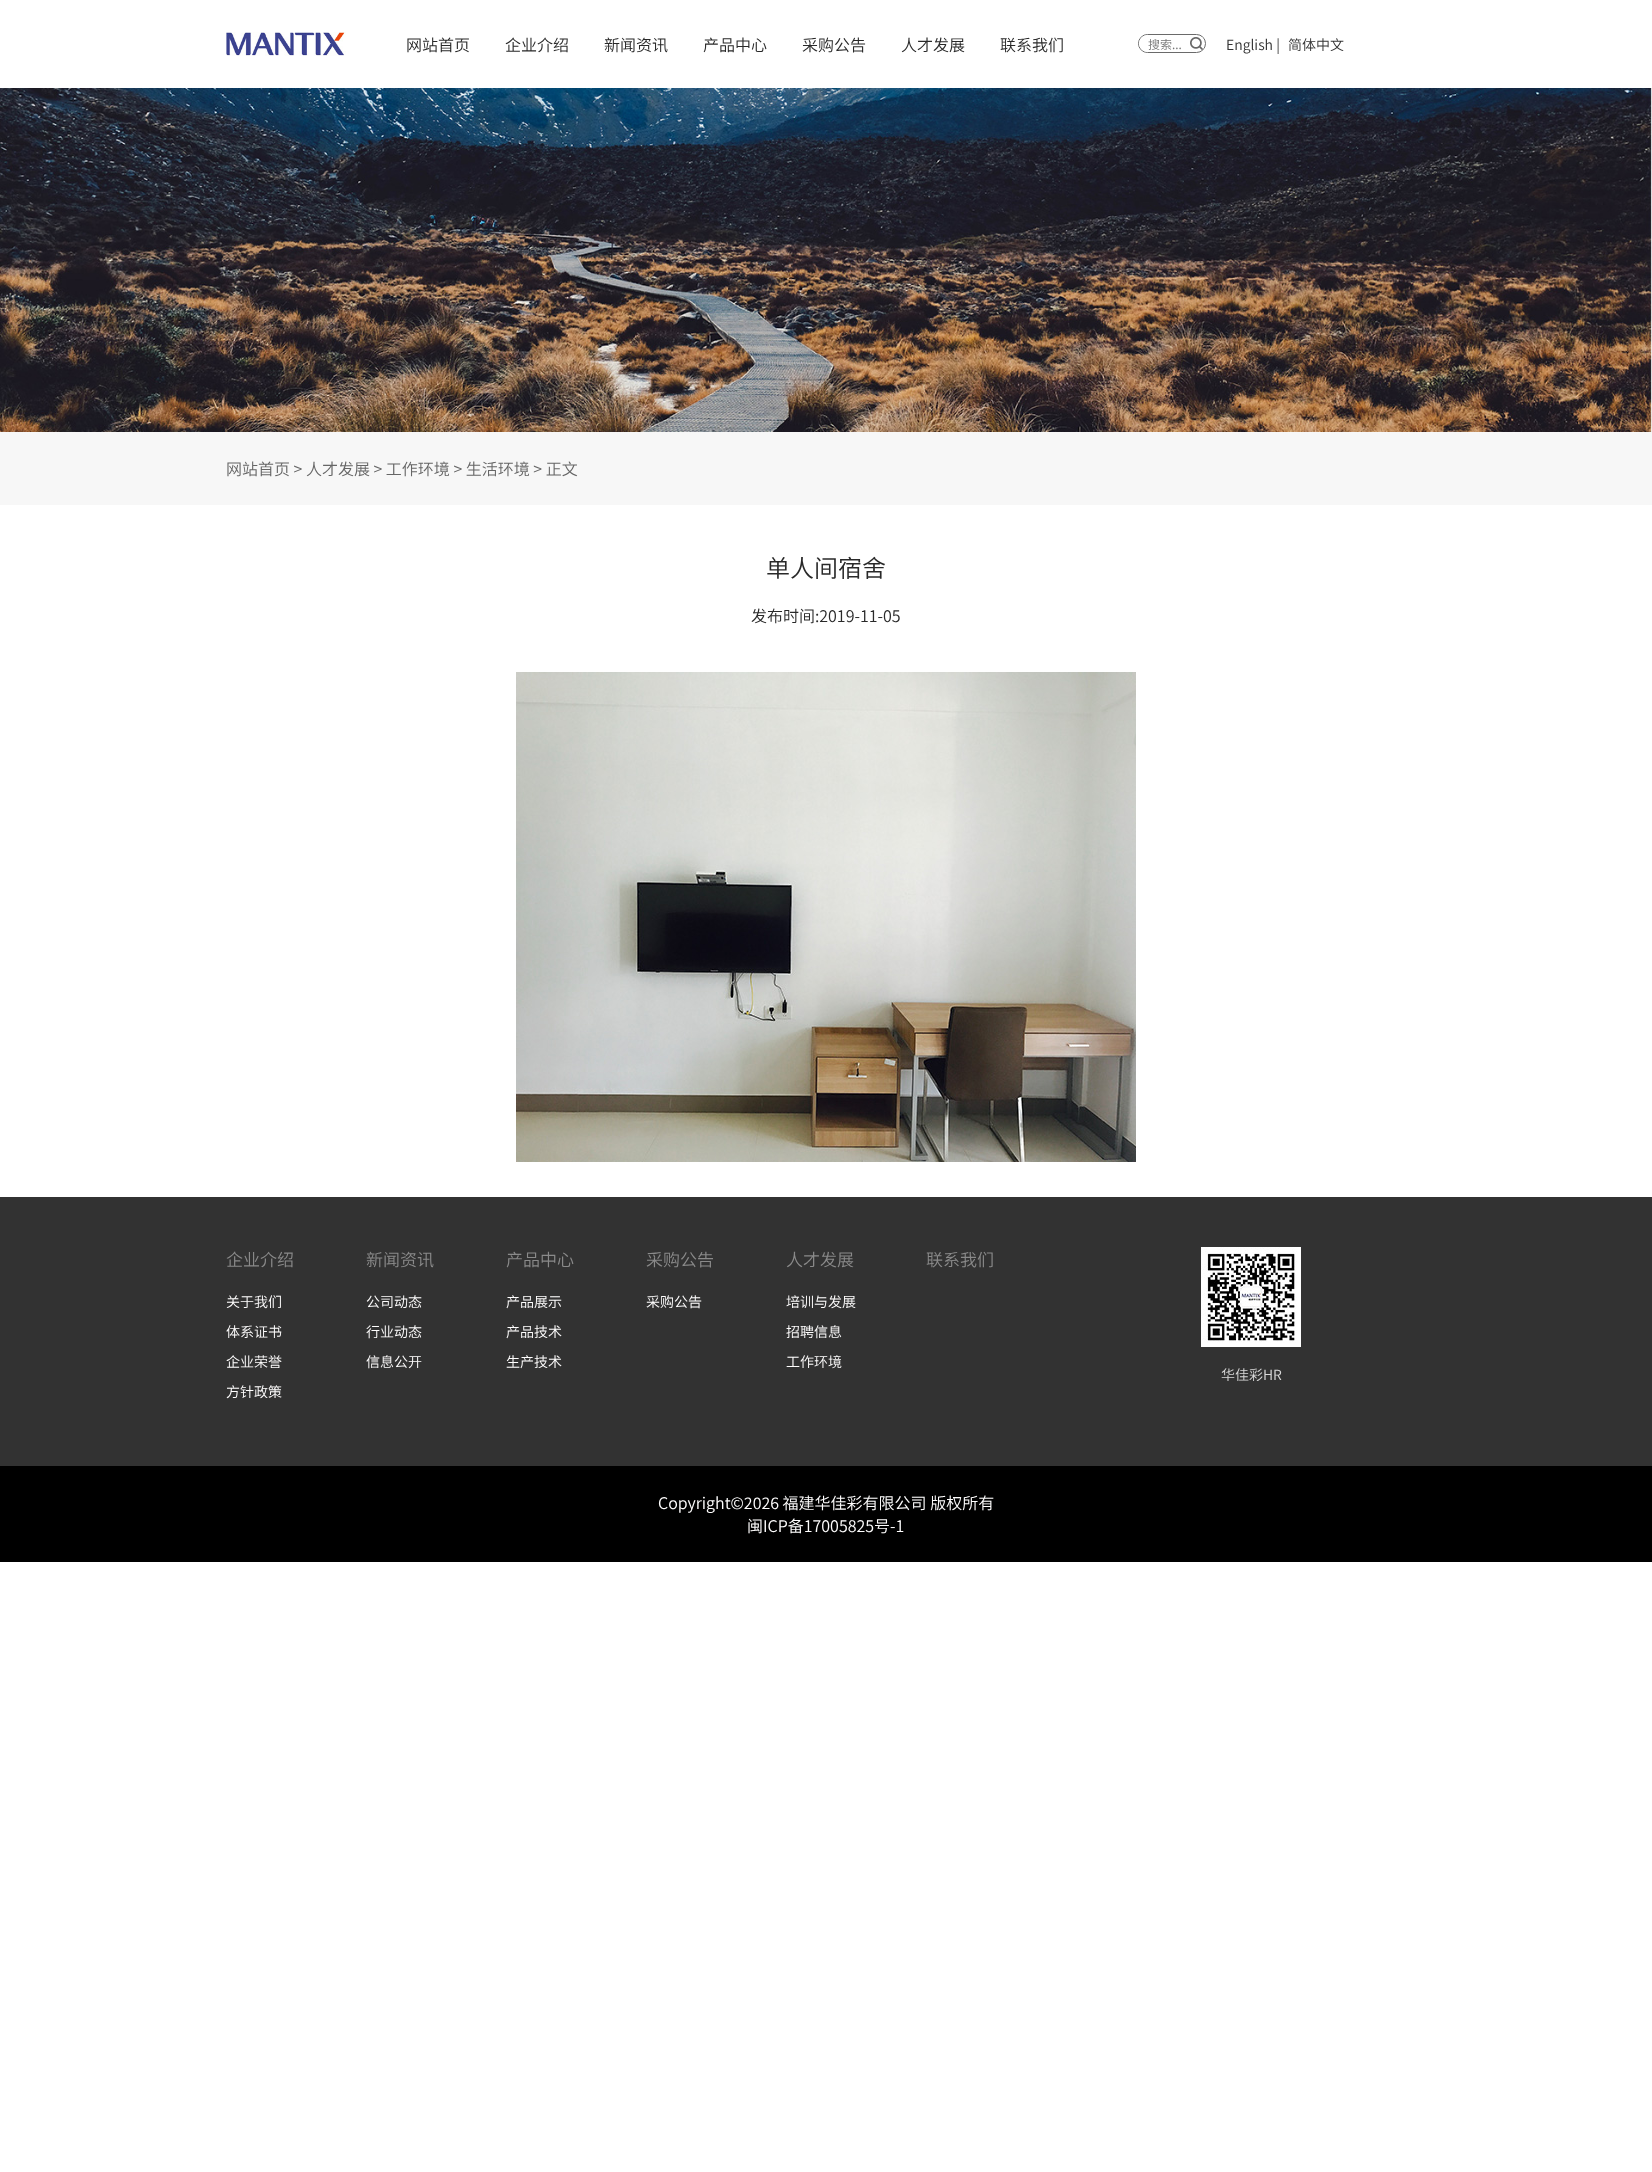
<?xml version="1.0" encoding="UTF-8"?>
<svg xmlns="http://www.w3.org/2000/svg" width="1652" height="2172">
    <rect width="100%" height="100%" fill="#FFFFFF"/>
    <image x="226" y="32" width="120" height="24" href="img_01.png"/>
    <text x="406" y="51" font-family="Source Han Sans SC" font-size="16" font-weight="300" fill="#292929">网站首页</text>
    <text x="505" y="51" font-family="Source Han Sans SC" font-size="16" font-weight="300" fill="#292929">企业介绍</text>
    <text x="604" y="51" font-family="Source Han Sans SC" font-size="16" font-weight="300" fill="#292929">新闻资讯</text>
    <text x="703" y="51" font-family="Source Han Sans SC" font-size="16" font-weight="300" fill="#292929">产品中心</text>
    <text x="802" y="51" font-family="Source Han Sans SC" font-size="16" font-weight="300" fill="#292929">采购公告</text>
    <text x="901" y="51" font-family="Source Han Sans SC" font-size="16" font-weight="300" fill="#292929">人才发展</text>
    <text x="1000" y="51" font-family="Source Han Sans SC" font-size="16" font-weight="300" fill="#292929">联系我们</text>
    <rect x="1138.5" y="34.5" width="67" height="18" rx="9" fill="none" stroke="#6A6A6A"/>
    <path d="M 1147.5 35 H 1190 V 52 H 1147.5 C 1143 52 1139 48 1139 43.5 C 1139 39 1143 35 1147.5 35 Z" fill="#FFFFFF"/>
    <text x="1148" y="49" font-family="Source Han Sans SC" font-size="12" font-weight="300" fill="#757575">搜索...</text>
    <image x="1190" y="37" width="14" height="14" href="img_02.png"/>
    <text x="1226" y="50" font-family="Source Han Sans SC" font-size="14" font-weight="300" fill="#333333">English |</text>
    <text x="1288" y="50" font-family="Source Han Sans SC" font-size="14" font-weight="300" fill="#333333">简体中文</text>
    <image x="0" y="88" width="1652" height="344" href="img_03.png"/>
    <rect x="0" y="432" width="1652" height="73" fill="#F7F7F7"/>
    <text x="226" y="475" font-family="Source Han Sans SC" font-size="16" font-weight="300" fill="#666666">网站首页 &gt; 人才发展 &gt; 工作环境 &gt; 生活环境 &gt; 正文</text>
    <text x="766" y="577" font-family="Source Han Sans SC" font-size="24" font-weight="300" fill="#292929">单人间宿舍</text>
    <text x="751" y="622" font-family="Source Han Sans SC" font-size="16" font-weight="300" fill="#292929">发布时间:2019-11-05</text>
    <image x="516" y="672" width="620" height="490" href="img_04.png"/>
    <rect x="0" y="1197" width="1652" height="269" fill="#323232"/>
    <text x="226" y="1266" font-family="Source Han Sans SC" font-size="17" font-weight="300" fill="#8A8A8A">企业介绍</text>
    <text x="226" y="1307" font-family="Source Han Sans SC" font-size="14" font-weight="300" fill="#FFFEFE">关于我们</text>
    <text x="226" y="1337" font-family="Source Han Sans SC" font-size="14" font-weight="300" fill="#FFFEFE">体系证书</text>
    <text x="226" y="1367" font-family="Source Han Sans SC" font-size="14" font-weight="300" fill="#FFFEFE">企业荣誉</text>
    <text x="226" y="1397" font-family="Source Han Sans SC" font-size="14" font-weight="300" fill="#FFFEFE">方针政策</text>
    <text x="366" y="1266" font-family="Source Han Sans SC" font-size="17" font-weight="300" fill="#8A8A8A">新闻资讯</text>
    <text x="366" y="1307" font-family="Source Han Sans SC" font-size="14" font-weight="300" fill="#FFFEFE">公司动态</text>
    <text x="366" y="1337" font-family="Source Han Sans SC" font-size="14" font-weight="300" fill="#FFFEFE">行业动态</text>
    <text x="366" y="1367" font-family="Source Han Sans SC" font-size="14" font-weight="300" fill="#FFFEFE">信息公开</text>
    <text x="506" y="1266" font-family="Source Han Sans SC" font-size="17" font-weight="300" fill="#8A8A8A">产品中心</text>
    <text x="506" y="1307" font-family="Source Han Sans SC" font-size="14" font-weight="300" fill="#FFFEFE">产品展示</text>
    <text x="506" y="1337" font-family="Source Han Sans SC" font-size="14" font-weight="300" fill="#FFFEFE">产品技术</text>
    <text x="506" y="1367" font-family="Source Han Sans SC" font-size="14" font-weight="300" fill="#FFFEFE">生产技术</text>
    <text x="646" y="1266" font-family="Source Han Sans SC" font-size="17" font-weight="300" fill="#8A8A8A">采购公告</text>
    <text x="646" y="1307" font-family="Source Han Sans SC" font-size="14" font-weight="300" fill="#FFFEFE">采购公告</text>
    <text x="786" y="1266" font-family="Source Han Sans SC" font-size="17" font-weight="300" fill="#8A8A8A">人才发展</text>
    <text x="786" y="1307" font-family="Source Han Sans SC" font-size="14" font-weight="300" fill="#FFFEFE">培训与发展</text>
    <text x="786" y="1337" font-family="Source Han Sans SC" font-size="14" font-weight="300" fill="#FFFEFE">招聘信息</text>
    <text x="786" y="1367" font-family="Source Han Sans SC" font-size="14" font-weight="300" fill="#FFFEFE">工作环境</text>
    <text x="926" y="1266" font-family="Source Han Sans SC" font-size="17" font-weight="300" fill="#8A8A8A">联系我们</text>
    <image x="1201" y="1247" width="100" height="100" href="img_05.png"/>
    <text x="1221" y="1380" font-family="Source Han Sans SC" font-size="14" font-weight="300" fill="#D9D9D9">华佳彩HR</text>
    <rect x="0" y="1466" width="1652" height="96" fill="#000000"/>
    <text x="658" y="1509" font-family="Source Han Sans SC" font-size="16" font-weight="300" fill="#FFFEFE">Copyright©2026 福建华佳彩有限公司 版权所有</text>
    <text x="747" y="1532" font-family="Source Han Sans SC" font-size="16" font-weight="300" fill="#FFFEFE">闽ICP备17005825号-1</text>
</svg>
